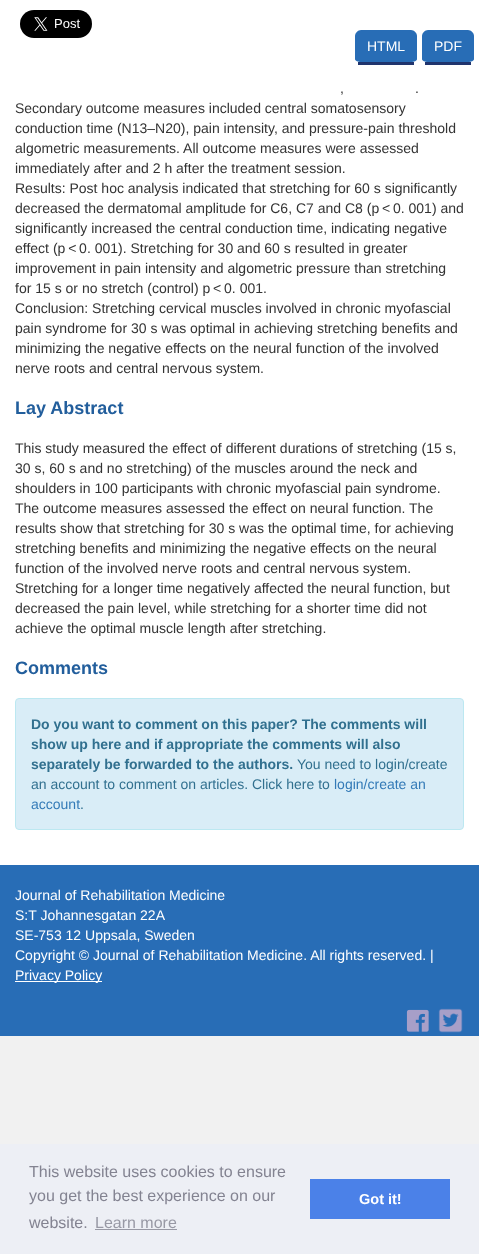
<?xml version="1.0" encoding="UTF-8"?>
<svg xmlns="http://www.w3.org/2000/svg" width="479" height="1254">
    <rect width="100%" height="100%" fill="#F1F1F1"/>
    <rect x="0" y="0" width="479" height="865" fill="#FFFFFF"/>
    <image x="20" y="10" width="72" height="28" href="img_01.png"/>
    <path d="M 361 30 H 411 C 414 30 417 33 417 36 V 59 C 417 61 414 62 411 62 H 361 C 358 62 355 61 355 59 V 36 C 355 33 358 30 361 30 Z" fill="#286DB6"/>
    <rect x="358" y="62" width="56" height="3" fill="#20346D"/>
    <text x="367" y="51" font-family="Liberation Sans" font-size="14" fill="#FFFFFF">HTML</text>
    <path d="M 428 30 H 468 C 471 30 474 33 474 36 V 59 C 474 61 471 62 468 62 H 428 C 425 62 422 61 422 59 V 36 C 422 33 425 30 428 30 Z" fill="#286DB6"/>
    <rect x="425" y="62" width="46" height="3" fill="#20346D"/>
    <text x="434" y="51" font-family="Liberation Sans" font-size="14" fill="#FFFFFF">PDF</text>
    <text x="340" y="93" font-family="Liberation Sans" font-size="14" fill="#333333">,</text>
    <text x="415" y="93" font-family="Liberation Sans" font-size="14" fill="#333333">.</text>
    <text font-family="Liberation Sans" font-size="14" fill="#333333">
        <tspan x="15" y="113">Secondary outcome measures included central somatosensory</tspan>
        <tspan x="15" y="133">conduction time (N13–N20), pain intensity, and pressure-pain threshold</tspan>
        <tspan x="15" y="153">algometric measurements. All outcome measures were assessed</tspan>
        <tspan x="15" y="173">immediately after and 2 h after the treatment session.</tspan>
        <tspan x="15" y="193">Results: Post hoc analysis indicated that stretching for 60 s significantly</tspan>
        <tspan x="15" y="213">decreased the dermatomal amplitude for C6, C7 and C8 (p &lt; 0. 001) and</tspan>
        <tspan x="15" y="233">significantly increased the central conduction time, indicating negative</tspan>
        <tspan x="15" y="253">effect (p &lt; 0. 001). Stretching for 30 and 60 s resulted in greater</tspan>
        <tspan x="15" y="273">improvement in pain intensity and algometric pressure than stretching</tspan>
        <tspan x="15" y="293">for 15 s or no stretch (control) p &lt; 0. 001.</tspan>
        <tspan x="15" y="313">Conclusion: Stretching cervical muscles involved in chronic myofascial</tspan>
        <tspan x="15" y="333">pain syndrome for 30 s was optimal in achieving stretching benefits and</tspan>
        <tspan x="15" y="353">minimizing the negative effects on the neural function of the involved</tspan>
        <tspan x="15" y="373">nerve roots and central nervous system.</tspan>
    </text>
    <text x="15" y="414" font-family="Liberation Sans" font-size="18" font-weight="700" fill="#225E9C">Lay Abstract</text>
    <text font-family="Liberation Sans" font-size="14" fill="#333333">
        <tspan x="15" y="453">This study measured the effect of different durations of stretching (15 s,</tspan>
        <tspan x="15" y="473">30 s, 60 s and no stretching) of the muscles around the neck and</tspan>
        <tspan x="15" y="493">shoulders in 100 participants with chronic myofascial pain syndrome.</tspan>
        <tspan x="15" y="513">The outcome measures assessed the effect on neural function. The</tspan>
        <tspan x="15" y="533">results show that stretching for 30 s was the optimal time, for achieving</tspan>
        <tspan x="15" y="553">stretching benefits and minimizing the negative effects on the neural</tspan>
        <tspan x="15" y="573">function of the involved nerve roots and central nervous system.</tspan>
        <tspan x="15" y="593">Stretching for a longer time negatively affected the neural function, but</tspan>
        <tspan x="15" y="613">decreased the pain level, while stretching for a shorter time did not</tspan>
        <tspan x="15" y="633">achieve the optimal muscle length after stretching.</tspan>
    </text>
    <text x="15" y="674" font-family="Liberation Sans" font-size="18" font-weight="700" fill="#225E9C">Comments</text>
    <rect x="15.5" y="698.5" width="448" height="131" rx="3.5" fill="#D9EDF7" stroke="#BCE8F1"/>
    <text font-family="Liberation Sans" font-size="14" font-weight="700" fill="#31708F">
        <tspan x="31" y="729">Do you want to comment on this paper? The comments will</tspan>
        <tspan x="31" y="749">show up here and if appropriate the comments will also</tspan>
        <tspan x="31" y="769">separately be forwarded to the authors.</tspan>
    </text>
    <text x="297" y="769" font-family="Liberation Sans" font-size="14" fill="#31708F">You need to login/create</text>
    <text x="31" y="789" font-family="Liberation Sans" font-size="14" fill="#31708F">an account to comment on articles. Click here to</text>
    <text x="334" y="789" font-family="Liberation Sans" font-size="14" fill="#337AB7">login/create an</text>
    <text x="31" y="809" font-family="Liberation Sans" font-size="14" fill="#337AB7">account</text>
    <text x="80" y="809" font-family="Liberation Sans" font-size="14" fill="#31708F">.</text>
    <rect x="0" y="865" width="479" height="171" fill="#286DB6"/>
    <text font-family="Liberation Sans" font-size="14" fill="#FFFFFF">
        <tspan x="15" y="900">Journal of Rehabilitation Medicine</tspan>
        <tspan x="15" y="920">S:T Johannesgatan 22A</tspan>
        <tspan x="15" y="940">SE-753 12 Uppsala, Sweden</tspan>
        <tspan x="15" y="960">Copyright © Journal of Rehabilitation Medicine. All rights reserved. |</tspan>
    </text>
    <rect x="15" y="981" width="87" height="1" fill="#FFFFFF"/>
    <text x="15" y="980" font-family="Liberation Sans" font-size="14" fill="#FFFFFF">Privacy Policy</text>
    <image x="406" y="1009" width="23" height="23" href="img_02.png"/>
    <image x="438" y="1008" width="25" height="25" href="img_03.png"/>
    <rect x="0" y="1144" width="479" height="110" fill="#EDEFF5"/>
    <text font-family="Liberation Sans" font-size="16" fill="#838391">
        <tspan x="29" y="1177">This website uses cookies to ensure</tspan>
        <tspan x="29" y="1201">you get the best experience on our</tspan>
        <tspan x="29" y="1228">website.</tspan>
    </text>
    <text x="95" y="1228" font-family="Liberation Sans" font-size="16" fill="#9899A5">Learn more</text>
    <rect x="95" y="1229" width="82" height="1" fill="#9899A5"/>
    <rect x="310" y="1179" width="140" height="40" fill="#4B81E8"/>
    <text x="359" y="1204" font-family="Liberation Sans" font-size="14.5" font-weight="700" fill="#FFFFFF">Got it!</text>
</svg>
